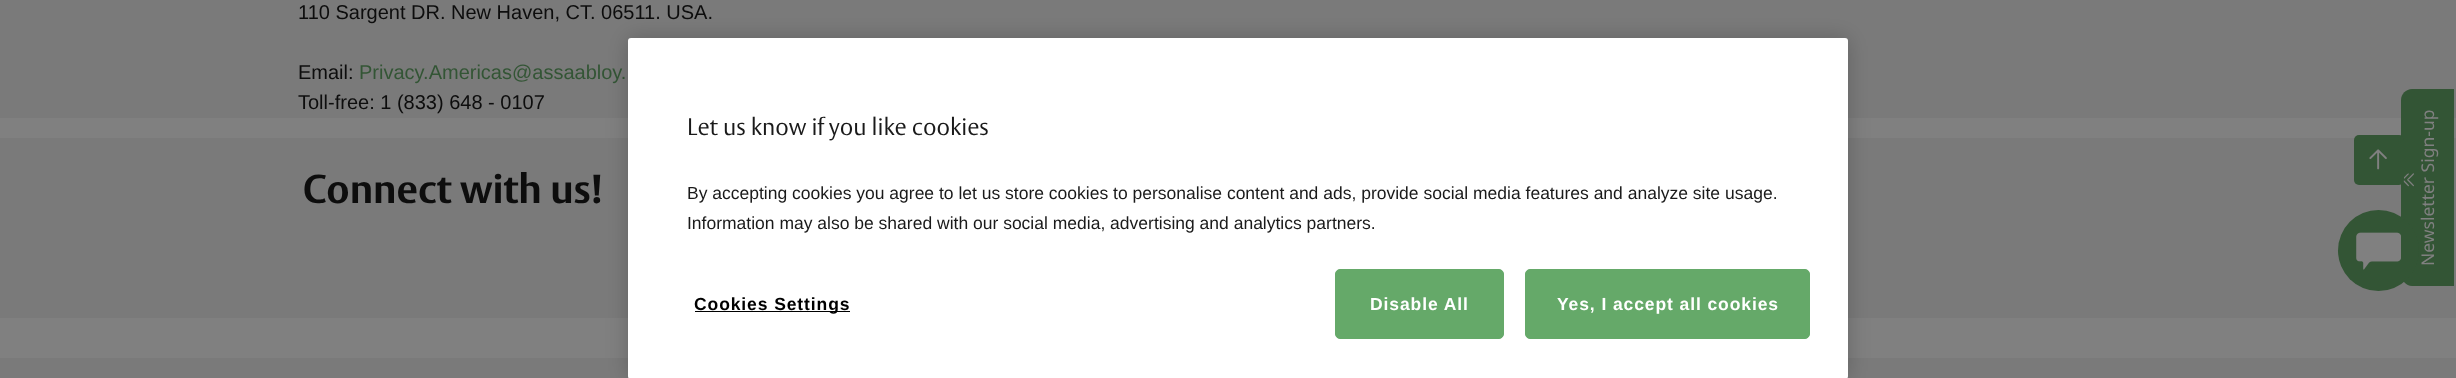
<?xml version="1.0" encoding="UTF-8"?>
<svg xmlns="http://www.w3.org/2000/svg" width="2456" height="378">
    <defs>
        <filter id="blur1" x="-50%" y="-200%" width="200%" height="500%"><feGaussianBlur stdDeviation="11"/></filter>
    </defs>
    <rect width="100%" height="100%" fill="#808080"/>
    <rect x="0" y="0" width="2456" height="118" fill="#7A7A7A"/>
    <text x="298" y="19" font-family="Liberation Sans" font-size="20" fill="#0D0D0D">110 Sargent DR. New Haven, CT. 06511. USA.</text>
    <text x="298" y="79" font-family="Liberation Sans" font-size="20" fill="#0D0D0D">Email:</text>
    <text x="359" y="79" font-family="Liberation Sans" font-size="20" fill="#335535">Privacy.Americas@assaabloy.</text>
    <text x="298" y="109" font-family="Liberation Sans" font-size="20" fill="#0D0D0D">Toll-free: 1 (833) 648 - 0107</text>
    <rect x="0" y="138" width="2456" height="180" fill="#7A7A7A"/>
    <text x="303" y="203" font-family="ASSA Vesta" font-size="40" font-weight="700" fill="#0D0D0D">Connect with us!</text>
    <path d="M 2401 274 V 100 C 2401 94 2406 89 2412 89 H 2454 V 286 H 2412 C 2406 286 2401 280 2401 274 Z" fill="#335535"/>
    <path d="M 2408 186 L 2402 180 L 2403 179.5 C 2404 180 2409 185 2409 185.5 C 2409 186 2408 186.5 2408 186 Z" fill="#808080"/>
    <path d="M 2402 179.5 C 2403 178.5 2407.5 173 2408.5 173.5 C 2409 173.5 2409 174 2408.5 174.5 L 2403 180 Z" fill="#808080"/>
    <rect x="2354" y="135" width="50" height="50" rx="5" fill="#335535"/>
    <image x="2369" y="149" width="18" height="21" href="img_01.png"/>
    <path d="M 2413 186 L 2407 180 L 2408 179.5 C 2409 180 2414 185 2414 185.5 C 2414 186 2413 186.5 2413 186 Z" fill="#808080"/>
    <path d="M 2407 179.5 L 2413 173.5 C 2413 173 2414 173.5 2414 174 C 2414 174.5 2409 179.5 2408 180 Z" fill="#808080"/>
    <text x="2434" y="266" transform="rotate(-90 2434 266)" font-family="Noto Sans" font-size="17.5" fill="#808080">Newsletter Sign-up</text>
    <rect x="0" y="358" width="2456" height="20" fill="#7A7A7A"/>
    <rect x="628" y="38" width="1220" height="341" rx="3" fill="#000000" fill-opacity="0.2" filter="url(#blur1)"/>
    <rect x="628" y="38" width="1220" height="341" rx="3" fill="#FFFFFF"/>
    <text x="687" y="135" font-family="ASSA Vesta" font-size="23.75" font-weight="300" fill="#1A1A1A">Let us know if you like cookies</text>
    <text font-family="Liberation Sans" font-size="17.5" fill="#1A1A1A">
        <tspan x="687" y="199">By accepting cookies you agree to let us store cookies to personalise content and ads, provide social media features and analyze site usage.</tspan>
        <tspan x="687" y="229">Information may also be shared with our social media, advertising and analytics partners.</tspan>
    </text>
    <rect x="695" y="311" width="155" height="1" fill="#000000"/>
    <text x="694" y="310" font-family="Liberation Sans" font-size="17.5" font-weight="700" letter-spacing="0.9" fill="#000000">Cookies Settings</text>
    <rect x="1335.5" y="269.5" width="168" height="69" rx="4.5" fill="#65A969" stroke="#65A969"/>
    <text x="1370" y="310" font-family="Liberation Sans" font-size="17.5" font-weight="700" letter-spacing="0.9" fill="#FFFFFF">Disable All</text>
    <rect x="1525.5" y="269.5" width="284" height="69" rx="4.5" fill="#65A969" stroke="#65A969"/>
    <text x="1557" y="310" font-family="Liberation Sans" font-size="17.5" font-weight="700" letter-spacing="0.9" fill="#FFFFFF">Yes, I accept all cookies</text>
    <circle cx="2378.5" cy="250.5" r="40.5" fill="#335535"/>
    <image x="2356" y="232" width="45" height="38" href="img_02.png"/>
</svg>
